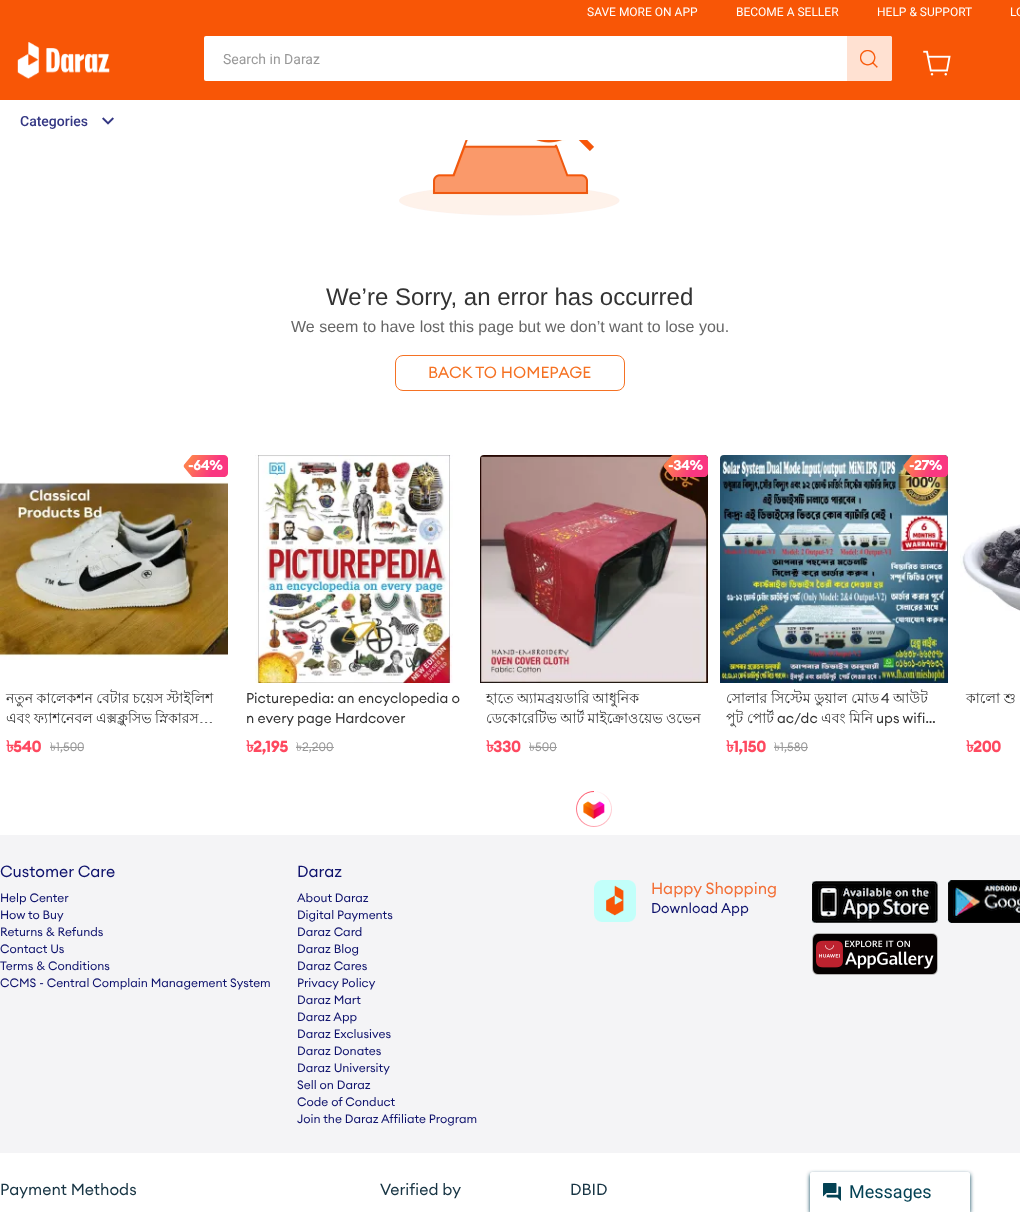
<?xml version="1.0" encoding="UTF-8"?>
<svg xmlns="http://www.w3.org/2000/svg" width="1020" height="1212">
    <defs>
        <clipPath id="clip1"><rect x="246" y="735" width="42" height="24"/></clipPath>
        <clipPath id="clip2"><rect x="726" y="689" width="216" height="40"/></clipPath>
        <clipPath id="clip3"><rect x="966" y="735" width="35" height="24"/></clipPath>
        <filter id="blur1" x="-50%" y="-200%" width="200%" height="500%"><feGaussianBlur stdDeviation="2"/></filter>
    </defs>
    <rect width="100%" height="100%" fill="#FFFFFF"/>
    <rect x="0" y="0" width="1020" height="100" fill="#F85606"/>
    <text x="587" y="16" font-family="Roboto" font-size="12" fill="#FFFFFF">SAVE MORE ON APP</text>
    <text x="736" y="16" font-family="Roboto" font-size="12" fill="#FFFFFF">BECOME A SELLER</text>
    <text x="877" y="16" font-family="Roboto" font-size="12" fill="#FFFFFF">HELP &amp; SUPPORT</text>
    <text x="1010" y="16" font-family="Roboto" font-size="12" fill="#FFFFFF">LO</text>
    <image x="17" y="42" width="93" height="37" href="img_01.png"/>
    <rect x="204" y="36" width="688" height="45" rx="2" fill="#FFFFFF"/>
    <text x="223" y="64" font-family="Roboto" font-size="14" fill="#999999">Search in Daraz</text>
    <path d="M 847 36 H 890 C 891 36 892 37 892 38 V 79 C 892 80 891 81 890 81 H 847 Z" fill="#FFE1D2"/>
    <image x="860" y="50" width="18" height="18" href="img_02.png"/>
    <image x="923" y="50" width="28" height="26" href="img_03.png"/>
    <text x="20" y="126" font-family="Roboto" font-size="14" font-weight="500" fill="#333683">Categories</text>
    <image x="102" y="117" width="12" height="8" href="img_04.png"/>
    <image x="399" y="140" width="221" height="76" href="img_05.png"/>
    <text x="326" y="305" font-family="Liberation Sans" font-size="24" fill="#333333">We’re Sorry, an error has occurred</text>
    <text x="291" y="332" font-family="Liberation Sans" font-size="16" fill="#666666">We seem to have lost this page but we don’t want to lose you.</text>
    <rect x="395.5" y="355.5" width="229" height="35" rx="7.5" fill="none" stroke="#F57224"/>
    <text x="428" y="378" font-family="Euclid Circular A" font-size="16" fill="#F57224">BACK TO HOMEPAGE</text>
    <image x="183" y="455" width="45" height="22" href="img_06.png"/>
    <text x="188" y="470" font-family="Euclid Circular A" font-size="14" font-weight="700" letter-spacing="-0.5" fill="#FFFFFF">-64%</text>
    <image x="0" y="482" width="228" height="178" href="img_07.png"/>
    <text font-family="Lohit Bengali" font-size="14" fill="#333333">
        <tspan x="6" y="703" word-spacing="-0.5">নতুন কালেকশন বেটার চয়েস স্টাইলিশ</tspan>
        <tspan x="6" y="723" word-spacing="-0.5">এবং ফ্যাশনেবল এক্সক্লুসিভ স্নিকারস…</tspan>
    </text>
    <text x="6" y="752" font-family="Lohit Bengali" font-size="16" font-weight="700" letter-spacing="-0.5" fill="#FE4960">৳</text>
    <text x="13" y="752" font-family="Euclid Circular A" font-size="16" font-weight="700" letter-spacing="-0.5" fill="#FE4960">540</text>
    <text x="50" y="751" font-family="Lohit Bengali" font-size="12" fill="#999999">৳</text>
    <rect x="50" y="747" width="6" height="1" fill="#999999"/>
    <text x="56" y="751" font-family="Euclid Circular A" font-size="12" fill="#999999">1,500</text>
    <rect x="56" y="747" width="28" height="1" fill="#999999"/>
    <image x="255" y="455" width="198" height="228" href="img_08.png"/>
    <text font-family="Euclid Circular A" font-size="14" fill="#333333">
        <tspan x="246" y="703">Picturepedia: an encyclopedia o</tspan>
        <tspan x="246" y="723">n every page Hardcover</tspan>
    </text>
    <text x="246" y="752" font-family="Lohit Bengali" font-size="16" font-weight="700" letter-spacing="-0.5" fill="#FE4960">৳</text>
    <g clip-path="url(#clip1)">
        <text x="253" y="752" font-family="Euclid Circular A" font-size="16" font-weight="700" letter-spacing="-0.5" fill="#FE4960">2,195</text>
    </g>
    <text x="296" y="751" font-family="Lohit Bengali" font-size="12" fill="#999999">৳</text>
    <rect x="296" y="747" width="6" height="1" fill="#999999"/>
    <text x="302" y="751" font-family="Euclid Circular A" font-size="12" fill="#999999">2,200</text>
    <rect x="302" y="747" width="32" height="1" fill="#999999"/>
    <image x="480" y="455" width="228" height="228" href="img_09.png"/>
    <image x="663" y="455" width="45" height="22" href="img_10.png"/>
    <text x="668" y="470" font-family="Euclid Circular A" font-size="14" font-weight="700" letter-spacing="-0.5" fill="#FFFFFF">-34%</text>
    <text font-family="Lohit Bengali" font-size="14" fill="#333333">
        <tspan x="486" y="703" word-spacing="-0.5">হাতে অ্যামব্রয়ডারি আধুনিক</tspan>
        <tspan x="486" y="723" word-spacing="-0.5">ডেকোরেটিভ আর্ট মাইক্রোওয়েভ ওভেন</tspan>
    </text>
    <text x="486" y="752" font-family="Lohit Bengali" font-size="16" font-weight="700" letter-spacing="-0.5" fill="#FE4960">৳</text>
    <text x="493" y="752" font-family="Euclid Circular A" font-size="16" font-weight="700" letter-spacing="-0.5" fill="#FE4960">330</text>
    <text x="529" y="751" font-family="Lohit Bengali" font-size="12" fill="#999999">৳</text>
    <rect x="529" y="747" width="6" height="1" fill="#999999"/>
    <text x="535" y="751" font-family="Euclid Circular A" font-size="12" fill="#999999">500</text>
    <rect x="535" y="747" width="22" height="1" fill="#999999"/>
    <image x="720" y="455" width="228" height="228" href="img_11.png"/>
    <image x="903" y="455" width="45" height="22" href="img_12.png"/>
    <text x="909" y="470" font-family="Euclid Circular A" font-size="14" font-weight="700" letter-spacing="-0.5" fill="#FFFFFF">-27%</text>
    <text x="726" y="703" font-family="Lohit Bengali" font-size="14" fill="#333333">সোলার সিস্টেম ডুয়াল মোড</text>
    <text x="881" y="703" font-family="Euclid Circular A" font-size="14" fill="#333333">4</text>
    <text x="893" y="703" font-family="Lohit Bengali" font-size="14" fill="#333333">আউট</text>
    <g clip-path="url(#clip2)">
        <text x="726" y="723" font-family="Lohit Bengali" font-size="14" fill="#333333">পুট</text>
    </g>
    <text x="747" y="723" font-family="Lohit Bengali" font-size="14" fill="#333333">পোর্ট</text>
    <text x="777" y="723" font-family="Euclid Circular A" font-size="14" fill="#333333">ac/dc</text>
    <text x="821" y="723" font-family="Lohit Bengali" font-size="14" fill="#333333">এবং</text>
    <text x="849" y="723" font-family="Lohit Bengali" font-size="14" fill="#333333">মিনি</text>
    <text x="876" y="723" font-family="Euclid Circular A" font-size="14" fill="#333333">ups wifi…</text>
    <text x="726" y="752" font-family="Lohit Bengali" font-size="16" font-weight="700" letter-spacing="-0.5" fill="#FE4960">৳</text>
    <text x="733" y="752" font-family="Euclid Circular A" font-size="16" font-weight="700" letter-spacing="-0.5" fill="#FE4960">1,150</text>
    <text x="774" y="751" font-family="Lohit Bengali" font-size="12" fill="#999999">৳</text>
    <rect x="774" y="747" width="6" height="1" fill="#999999"/>
    <text x="780" y="751" font-family="Euclid Circular A" font-size="12" fill="#999999">1,580</text>
    <rect x="780" y="747" width="28" height="1" fill="#999999"/>
    <image x="960" y="524" width="60" height="87" href="img_13.png"/>
    <text x="966" y="703" font-family="Lohit Bengali" font-size="14" fill="#333333">কালো শু</text>
    <text x="966" y="752" font-family="Lohit Bengali" font-size="16" font-weight="700" letter-spacing="-0.5" fill="#FE4960">৳</text>
    <g clip-path="url(#clip3)">
        <text x="973" y="752" font-family="Euclid Circular A" font-size="16" font-weight="700" letter-spacing="-0.5" fill="#FE4960">200</text>
    </g>
    <image x="576" y="791" width="36" height="36" href="img_14.png"/>
    <circle cx="594" cy="809" r="17" fill="#FFFFFF"/>
    <image x="583" y="801" width="22" height="18" href="img_15.png"/>
    <rect x="0" y="835" width="1020" height="318" fill="#F4F4F6"/>
    <text x="0" y="877" font-family="Euclid Circular A" font-size="16" fill="#0F136D">Customer Care</text>
    <text font-family="Euclid Circular A" font-size="12" fill="#0F136D">
        <tspan x="0" y="902">Help Center</tspan>
        <tspan x="0" y="919">How to Buy</tspan>
        <tspan x="0" y="936">Returns &amp; Refunds</tspan>
        <tspan x="0" y="953">Contact Us</tspan>
        <tspan x="0" y="970">Terms &amp; Conditions</tspan>
        <tspan x="0" y="987">CCMS - Central Complain Management System</tspan>
    </text>
    <text x="297" y="877" font-family="Euclid Circular A" font-size="16" fill="#0F136D">Daraz</text>
    <text font-family="Euclid Circular A" font-size="12" fill="#0F136D">
        <tspan x="297" y="902">About Daraz</tspan>
        <tspan x="297" y="919">Digital Payments</tspan>
        <tspan x="297" y="936">Daraz Card</tspan>
        <tspan x="297" y="953">Daraz Blog</tspan>
        <tspan x="297" y="970">Daraz Cares</tspan>
        <tspan x="297" y="987">Privacy Policy</tspan>
        <tspan x="297" y="1004">Daraz Mart</tspan>
        <tspan x="297" y="1021">Daraz App</tspan>
        <tspan x="297" y="1038">Daraz Exclusives</tspan>
        <tspan x="297" y="1055">Daraz Donates</tspan>
        <tspan x="297" y="1072">Daraz University</tspan>
        <tspan x="297" y="1089">Sell on Daraz</tspan>
        <tspan x="297" y="1106">Code of Conduct</tspan>
        <tspan x="297" y="1123">Join the Daraz Affiliate Program</tspan>
    </text>
    <image x="594" y="880" width="42" height="42" href="img_16.png"/>
    <text x="651" y="894" font-family="Euclid Circular A" font-size="16" fill="#F36F36">Happy Shopping</text>
    <text x="651" y="913" font-family="Euclid Circular A" font-size="14" fill="#0F136D">Download App</text>
    <image x="812" y="881" width="126" height="42" href="img_17.png"/>
    <image x="948" y="880" width="72" height="43" href="img_18.png"/>
    <image x="812" y="933" width="126" height="42" href="img_19.png"/>
    <text x="0" y="1195" font-family="Euclid Circular A" font-size="16" fill="#183544">Payment Methods</text>
    <text x="380" y="1195" font-family="Euclid Circular A" font-size="16" fill="#183544">Verified by</text>
    <text x="570" y="1195" font-family="Euclid Circular A" font-size="16" fill="#183544">DBID</text>
    <rect x="810" y="1174" width="160" height="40" rx="2" fill="#003E52" filter="url(#blur1)"/>
    <path d="M 812 1172 H 968 C 969 1172 970 1173 970 1174 V 1212 H 810 V 1174 C 810 1173 811 1172 812 1172 Z" fill="#FFFFFF"/>
    <image x="823" y="1183" width="18" height="18" href="img_20.png"/>
    <text x="849" y="1198" font-family="Roboto" font-size="18" fill="#044254">Messages</text>
</svg>
